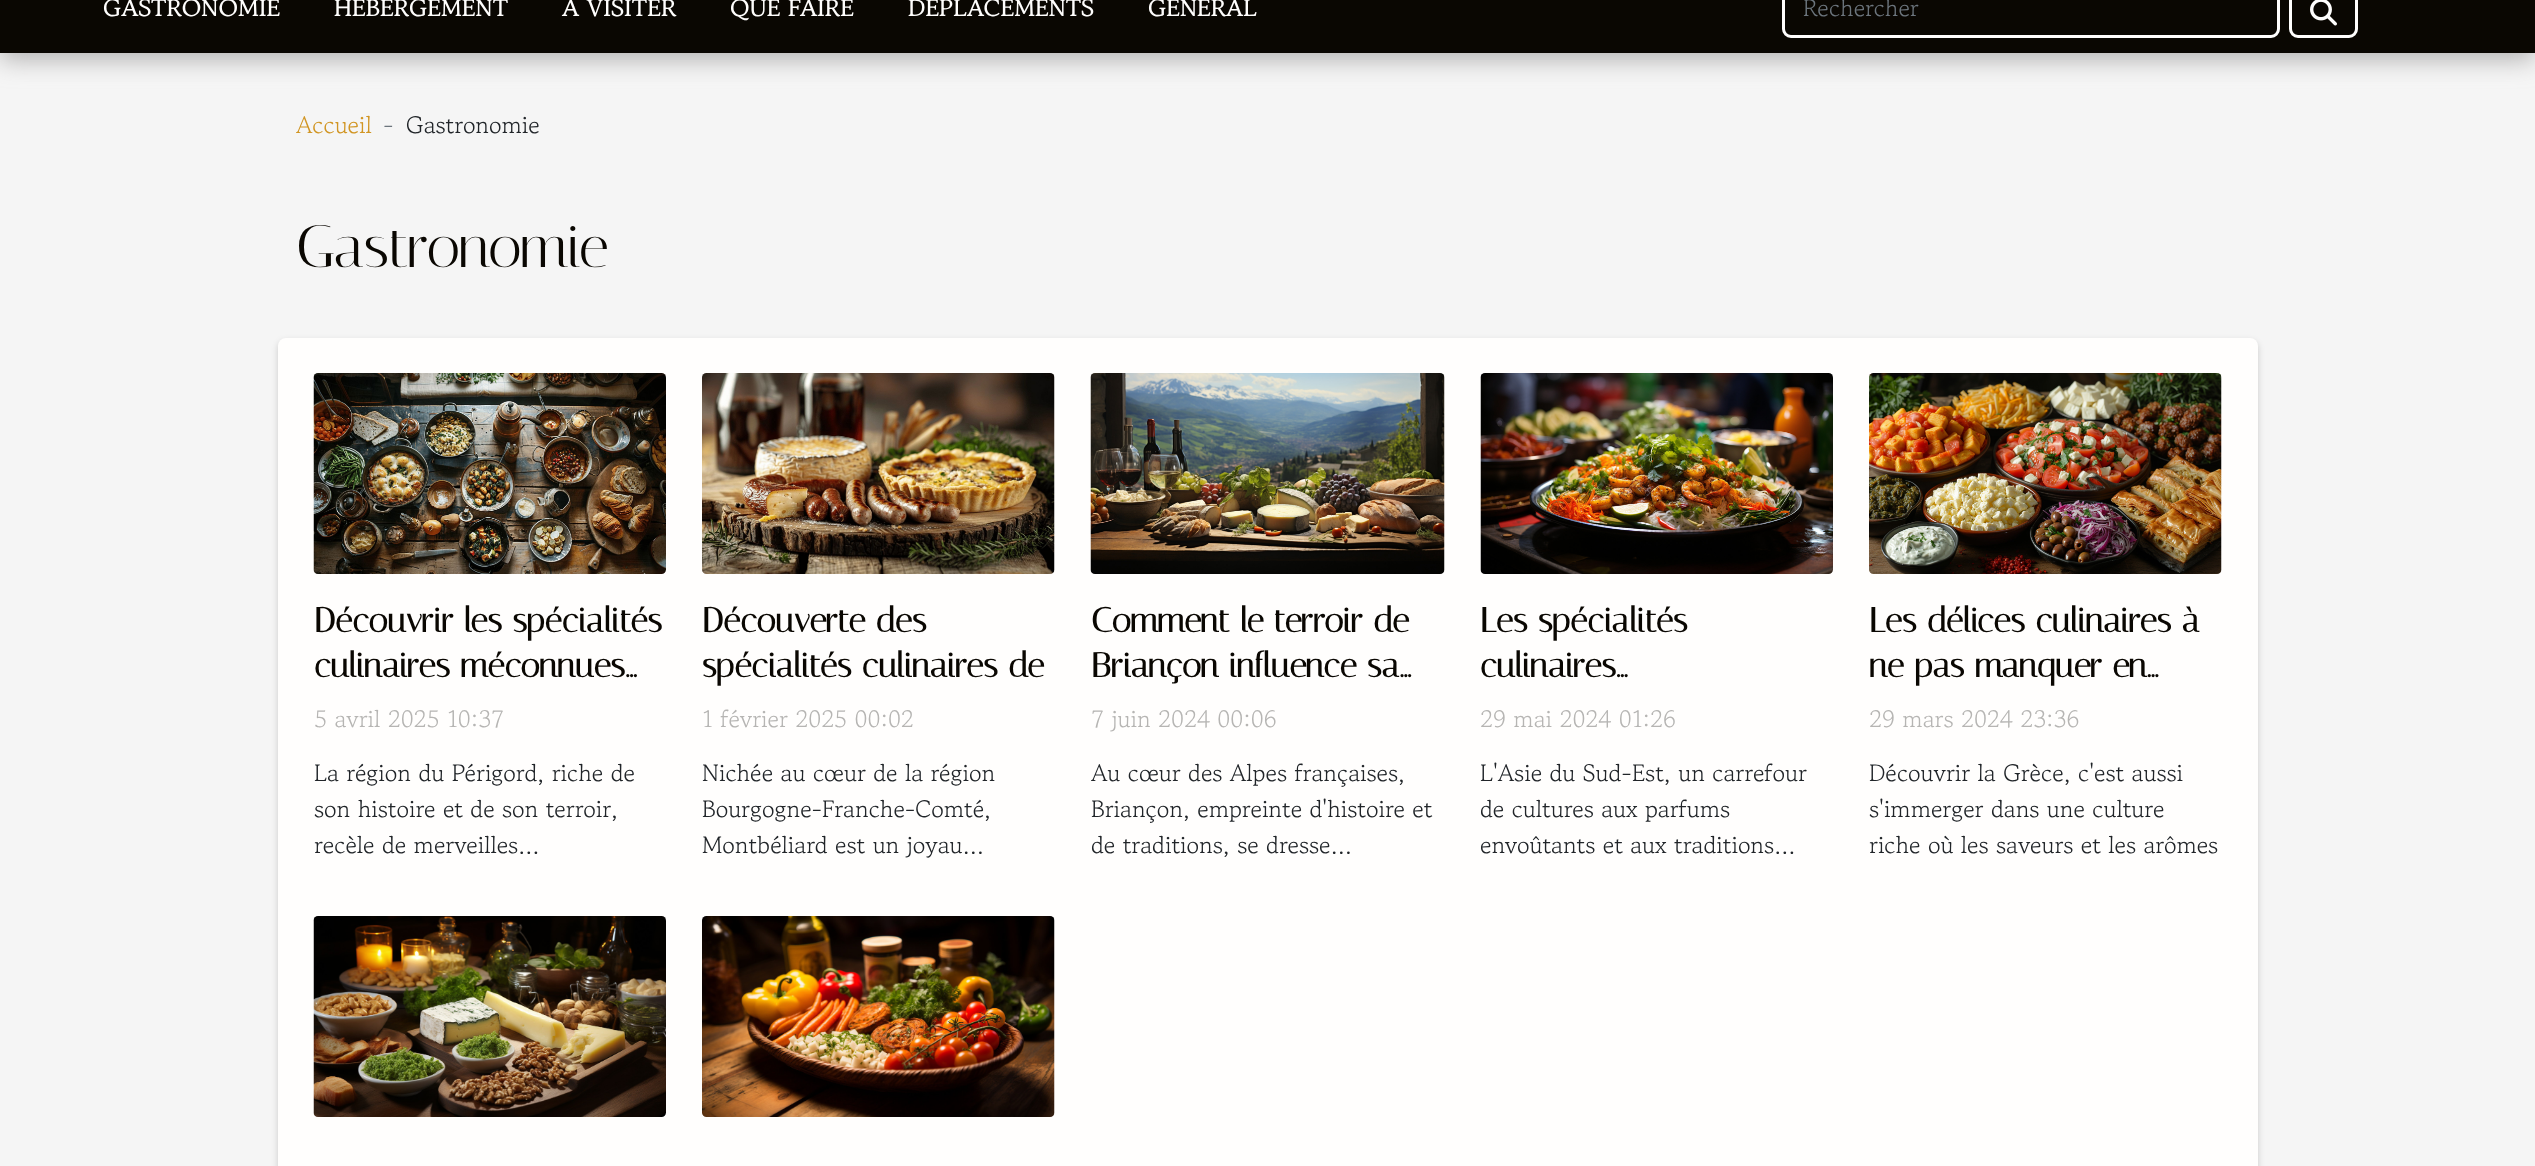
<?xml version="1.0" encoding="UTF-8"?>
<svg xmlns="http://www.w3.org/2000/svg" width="2535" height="1166">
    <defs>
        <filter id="blur1" x="-50%" y="-200%" width="200%" height="500%"><feGaussianBlur stdDeviation="12"/></filter>
        <filter id="blur2" x="-50%" y="-200%" width="200%" height="500%"><feGaussianBlur stdDeviation="3"/></filter>
        <clipPath id="clip1"><rect x="1481" y="755" width="352" height="108"/></clipPath>
    </defs>
    <rect width="100%" height="100%" fill="#F5F5F5"/>
    <rect x="0" y="-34" width="2535" height="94" fill="#B4B3B3" filter="url(#blur1)"/>
    <rect x="0" y="0" width="2535" height="53" fill="#0A0702"/>
    <text x="103" y="18" font-family="Gowun Batang" font-size="24" font-weight="700" fill="#FFFEFD">GASTRONOMIE</text>
    <text x="334" y="18" font-family="Gowun Batang" font-size="24" font-weight="700" fill="#FFFEFD">HÉBERGEMENT</text>
    <text x="562" y="18" font-family="Gowun Batang" font-size="24" font-weight="700" fill="#FFFEFD">A VISITER</text>
    <text x="730" y="18" font-family="Gowun Batang" font-size="24" font-weight="700" fill="#FFFEFD">QUE FAIRE</text>
    <text x="908" y="18" font-family="Gowun Batang" font-size="24" font-weight="700" fill="#FFFEFD">DÉPLACEMENTS</text>
    <text x="1148" y="18" font-family="Gowun Batang" font-size="24" font-weight="700" fill="#FFFEFD">GÉNÉRAL</text>
    <rect x="1783.5" y="-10.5" width="495" height="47" rx="7.5" fill="none" stroke="#FFFEFD" stroke-width="3"/>
    <text x="1803" y="18" font-family="Gowun Batang" font-size="24" fill="#6C757D">Rechercher</text>
    <rect x="2290.5" y="-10.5" width="66" height="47" rx="7.5" fill="none" stroke="#FFFEFD" stroke-width="3"/>
    <image x="2310" y="0" width="27" height="26" href="img_01.png"/>
    <text x="296" y="135" font-family="Gowun Batang" font-size="24" fill="#D19523">Accueil</text>
    <text x="383" y="135" font-family="Gowun Batang" font-size="24" fill="#6C757D">-</text>
    <text x="406" y="135" font-family="Gowun Batang" font-size="24" fill="#212529">Gastronomie</text>
    <text x="296" y="267" font-family="Italiana" font-size="60" fill="#0A0702">Gastronomie</text>
    <rect x="278" y="341" width="1980" height="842" rx="8" fill="#040301" fill-opacity="0.18" filter="url(#blur2)"/>
    <rect x="278" y="338" width="1980" height="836" rx="8" fill="#FFFEFD"/>
    <image x="313" y="373" width="353" height="201" href="img_02.png"/>
    <text font-family="Italiana" font-size="34.5" font-weight="700" fill="#0A0702">
        <tspan x="314" y="632">Découvrir les spécialités</tspan>
        <tspan x="314" y="677">culinaires méconnues…</tspan>
    </text>
    <text x="314" y="729" font-family="Gowun Batang" font-size="24" fill="#B6B5B3">5 avril 2025 10:37</text>
    <text font-family="Gowun Batang" font-size="24" fill="#212529">
        <tspan x="314" y="783">La région du Périgord, riche de</tspan>
        <tspan x="314" y="819">son histoire et de son terroir,</tspan>
        <tspan x="314" y="855">recèle de merveilles…</tspan>
    </text>
    <image x="702" y="373" width="353" height="201" href="img_03.png"/>
    <text font-family="Italiana" font-size="34.5" font-weight="700" fill="#0A0702">
        <tspan x="702" y="632">Découverte des</tspan>
        <tspan x="702" y="677">spécialités culinaires de</tspan>
    </text>
    <text x="702" y="729" font-family="Gowun Batang" font-size="24" fill="#B6B5B3">1 février 2025 00:02</text>
    <text font-family="Gowun Batang" font-size="24" fill="#212529">
        <tspan x="702" y="783">Nichée au cœur de la région</tspan>
        <tspan x="702" y="819">Bourgogne-Franche-Comté,</tspan>
        <tspan x="702" y="855">Montbéliard est un joyau…</tspan>
    </text>
    <image x="1090" y="373" width="355" height="201" href="img_04.png"/>
    <text font-family="Italiana" font-size="34.5" font-weight="700" fill="#0A0702">
        <tspan x="1091" y="632">Comment le terroir de</tspan>
        <tspan x="1091" y="677">Briançon influence sa…</tspan>
    </text>
    <text x="1091" y="729" font-family="Gowun Batang" font-size="24" fill="#B6B5B3">7 juin 2024 00:06</text>
    <text font-family="Gowun Batang" font-size="24" fill="#212529">
        <tspan x="1091" y="783">Au cœur des Alpes françaises,</tspan>
        <tspan x="1091" y="819">Briançon, empreinte d'histoire et</tspan>
        <tspan x="1091" y="855">de traditions, se dresse…</tspan>
    </text>
    <image x="1480" y="373" width="353" height="201" href="img_05.png"/>
    <text font-family="Italiana" font-size="34.5" font-weight="700" fill="#0A0702">
        <tspan x="1480" y="632">Les spécialités</tspan>
        <tspan x="1480" y="677">culinaires…</tspan>
    </text>
    <text x="1480" y="729" font-family="Gowun Batang" font-size="24" fill="#B6B5B3">29 mai 2024 01:26</text>
    <text x="1480" y="783" font-family="Gowun Batang" font-size="24" fill="#212529">L'Asie du Sud-Est, un carrefour</text>
    <g clip-path="url(#clip1)">
        <text font-family="Gowun Batang" font-size="24" fill="#212529">
            <tspan x="1480" y="819">de cultures aux parfums</tspan>
            <tspan x="1480" y="855">envoûtants et aux traditions…</tspan>
        </text>
    </g>
    <image x="1869" y="373" width="353" height="201" href="img_06.png"/>
    <text font-family="Italiana" font-size="34.5" font-weight="700" fill="#0A0702">
        <tspan x="1869" y="632">Les délices culinaires à</tspan>
        <tspan x="1869" y="677">ne pas manquer en…</tspan>
    </text>
    <text x="1869" y="729" font-family="Gowun Batang" font-size="24" fill="#B6B5B3">29 mars 2024 23:36</text>
    <text font-family="Gowun Batang" font-size="24" fill="#212529">
        <tspan x="1869" y="783">Découvrir la Grèce, c'est aussi</tspan>
        <tspan x="1869" y="819">s'immerger dans une culture</tspan>
        <tspan x="1869" y="855">riche où les saveurs et les arômes</tspan>
    </text>
    <image x="313" y="916" width="353" height="201" href="img_07.png"/>
    <image x="702" y="916" width="353" height="201" href="img_08.png"/>
</svg>
